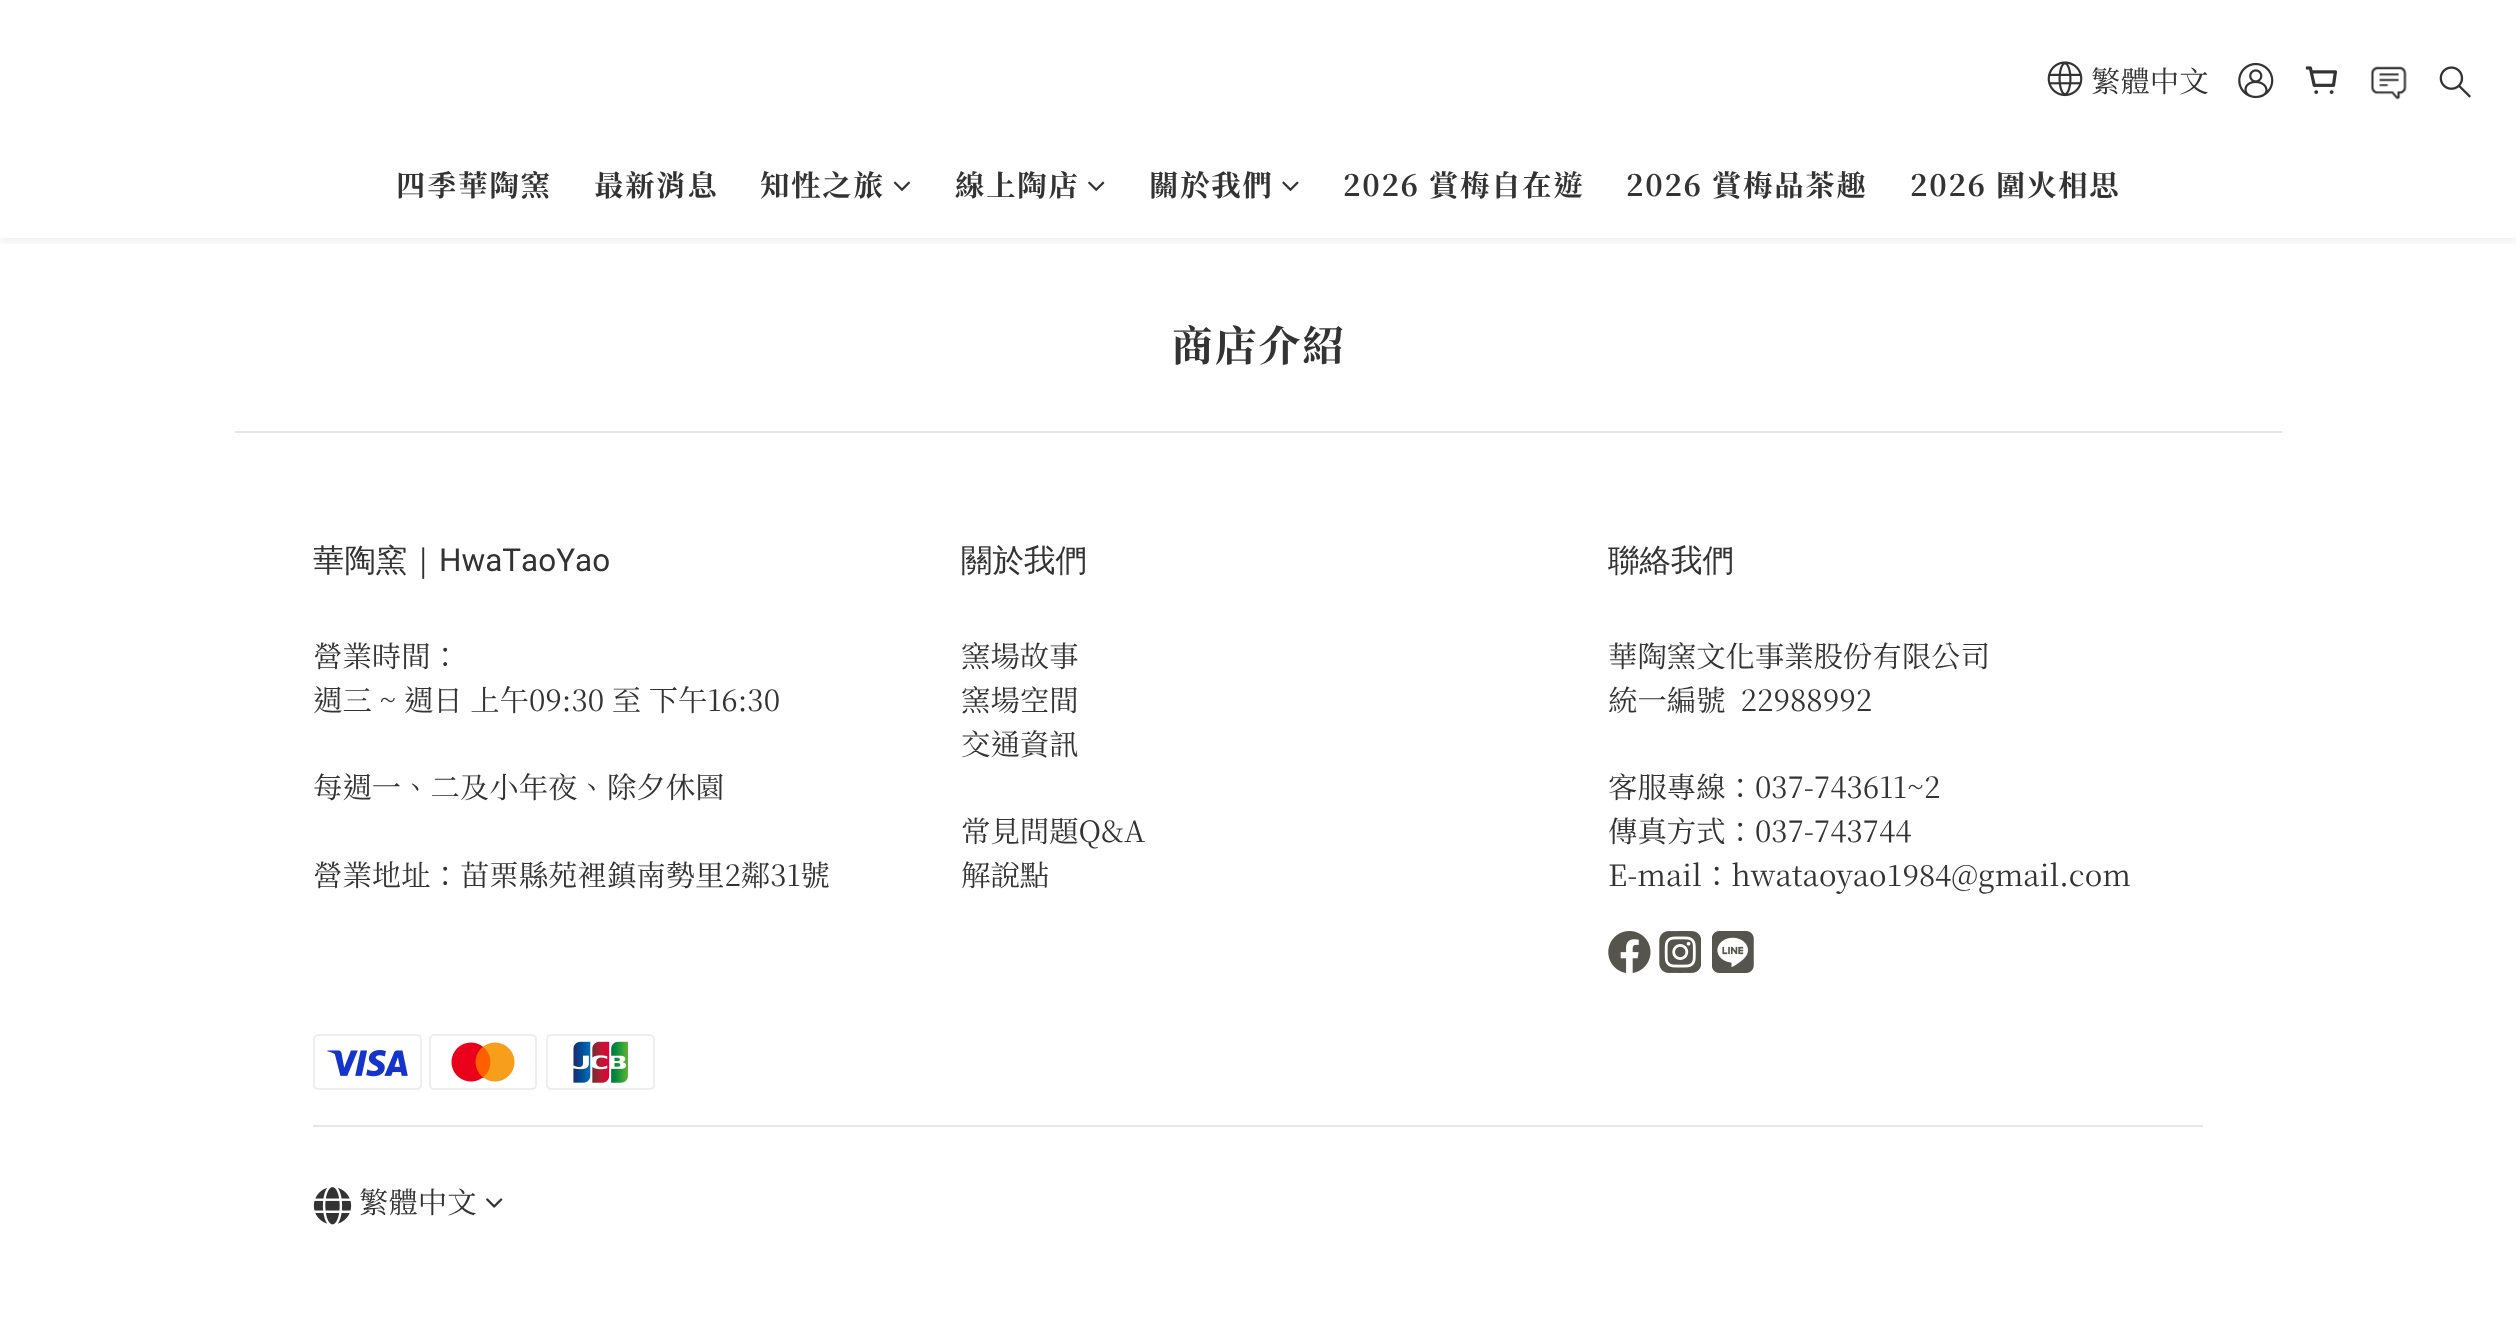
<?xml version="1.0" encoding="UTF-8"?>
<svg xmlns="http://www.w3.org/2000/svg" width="2516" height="1325">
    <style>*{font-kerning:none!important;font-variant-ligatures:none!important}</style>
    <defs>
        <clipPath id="clip1"><rect x="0" y="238" width="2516" height="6"/></clipPath>
        <filter id="blur1" x="-50%" y="-200%" width="200%" height="500%"><feGaussianBlur stdDeviation="5"/></filter>
    </defs>
    <rect width="100%" height="100%" fill="#FFFFFF"/>
    <g clip-path="url(#clip1)">
        <rect x="0" y="4" width="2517" height="238" fill="#000000" fill-opacity="0.06" filter="url(#blur1)"/>
    </g>
    <image x="2047" y="61" width="36" height="36" href="img_01.png"/>
    <text x="2091" y="92" font-family="Noto Serif TC" font-size="29.4" fill="#333333">繁體中文</text>
    <image x="2238" y="62" width="36" height="37" href="img_02.png"/>
    <image x="2305" y="66" width="32" height="28" href="img_03.png"/>
    <image x="2370" y="66" width="37" height="34" href="img_04.png"/>
    <image x="2439" y="66" width="32" height="32" href="img_05.png"/>
    <text x="396" y="196" font-family="Noto Serif TC" font-size="29.4" font-weight="700" letter-spacing="1.75" fill="#333333">四季華陶窯</text>
    <text x="594" y="196" font-family="Noto Serif TC" font-size="29.4" font-weight="700" letter-spacing="1.75" fill="#333333">最新消息</text>
    <text x="760" y="196" font-family="Noto Serif TC" font-size="29.4" font-weight="700" letter-spacing="1.75" fill="#333333">知性之旅</text>
    <image x="893" y="181" width="18" height="10" href="img_06.png"/>
    <text x="955" y="196" font-family="Noto Serif TC" font-size="29.4" font-weight="700" letter-spacing="1.75" fill="#333333">線上陶店</text>
    <image x="1088" y="181" width="17" height="10" href="img_07.png"/>
    <text x="1149" y="196" font-family="Noto Serif TC" font-size="29.4" font-weight="700" letter-spacing="1.75" fill="#333333">關於我們</text>
    <image x="1282" y="181" width="17" height="10" href="img_08.png"/>
    <text x="1343" y="196" font-family="Noto Serif TC" font-size="29.4" font-weight="700" letter-spacing="1.75" fill="#333333">2026 賞梅自在遊</text>
    <text x="1626" y="196" font-family="Noto Serif TC" font-size="29.4" font-weight="700" letter-spacing="1.75" fill="#333333">2026 賞梅品茶趣</text>
    <text x="1910" y="196" font-family="Noto Serif TC" font-size="29.4" font-weight="700" letter-spacing="1.75" fill="#333333">2026 圍火相思</text>
    <text x="1171" y="361" font-family="Noto Serif TC" font-size="42" font-weight="700" letter-spacing="1.75" fill="#333333">商店介紹</text>
    <rect x="235" y="431" width="2047" height="2" fill="#E6E6E6"/>
    <text x="313" y="571" font-family="WenQuanYi Zen Hei" font-size="31.5" font-weight="500" fill="#333333">華陶窯｜</text>
    <text x="439" y="571" font-family="Roboto" font-size="31.5" fill="#333333">HwaTaoYao</text>
    <text font-family="Noto Serif TC" font-size="29.4" fill="#333333">
        <tspan x="313" y="667">營業時間：</tspan>
        <tspan x="313" y="711">週三 ~ 週日 上午09:30 至 下午16:30</tspan>
    </text>
    <text x="313" y="798" font-family="Noto Serif TC" font-size="29.4" fill="#333333">每週一、二及小年夜、除夕休園</text>
    <text x="313" y="886" font-family="Noto Serif TC" font-size="29.4" fill="#333333">營業地址：苗栗縣苑裡鎮南勢里2鄰31號</text>
    <text x="961" y="571" font-family="WenQuanYi Zen Hei" font-size="31.5" font-weight="500" fill="#333333">關於我們</text>
    <text font-family="Noto Serif TC" font-size="29.4" fill="#333333">
        <tspan x="961" y="667">窯場故事</tspan>
        <tspan x="961" y="711">窯場空間</tspan>
        <tspan x="961" y="755">交通資訊</tspan>
    </text>
    <text font-family="Noto Serif TC" font-size="29.4" fill="#333333">
        <tspan x="961" y="842">常見問題Q&amp;A</tspan>
        <tspan x="961" y="886">解說點</tspan>
    </text>
    <text x="1608" y="571" font-family="WenQuanYi Zen Hei" font-size="31.5" font-weight="500" fill="#333333">聯絡我們</text>
    <text font-family="Noto Serif TC" font-size="29.4" fill="#333333" xml:space="preserve"><tspan x="1608" y="667">華陶窯文化事業股份有限公司</tspan><tspan x="1608" y="711">統一編號  22988992</tspan></text>
    <text font-family="Noto Serif TC" font-size="29.4" fill="#333333">
        <tspan x="1608" y="798">客服專線：037-743611~2</tspan>
        <tspan x="1608" y="842">傳真方式：037-743744</tspan>
        <tspan x="1608" y="886">E-mail：hwataoyao1984@gmail.com</tspan>
    </text>
    <image x="1608" y="931" width="43" height="42" href="img_09.png"/>
    <image x="1659" y="931" width="42" height="42" href="img_10.png"/>
    <image x="1712" y="931" width="42" height="42" href="img_11.png"/>
    <image x="313" y="1034" width="109" height="56" href="img_12.png"/>
    <image x="429" y="1034" width="108" height="56" href="img_13.png"/>
    <image x="546" y="1034" width="109" height="56" href="img_14.png"/>
    <rect x="313" y="1125" width="1890" height="2" fill="#E6E6E6"/>
    <image x="313" y="1187" width="39" height="38" href="img_15.png"/>
    <text x="359" y="1213" font-family="Noto Serif TC" font-size="29.4" fill="#333333">繁體中文</text>
    <image x="486" y="1198" width="17" height="10" href="img_16.png"/>
</svg>
